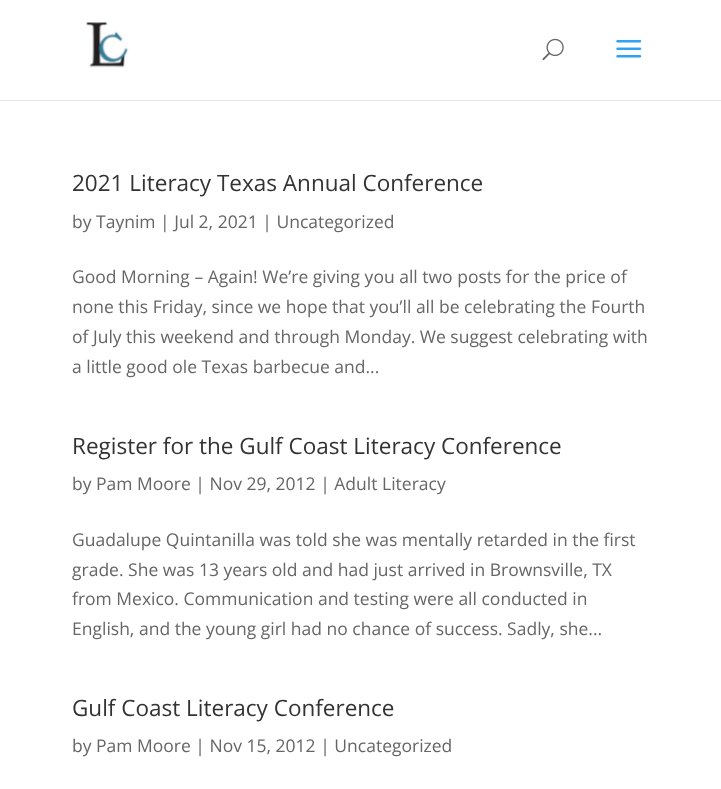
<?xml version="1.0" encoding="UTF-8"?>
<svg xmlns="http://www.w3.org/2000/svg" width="721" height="789">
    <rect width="100%" height="100%" fill="#FFFFFF"/>
    <rect x="0" y="100" width="721" height="1" fill="#E6E6E6"/>
    <image x="86" y="22" width="43" height="46" href="img_01.png"/>
    <image x="542" y="38" width="22" height="23" href="img_02.png"/>
    <image x="616" y="40" width="26" height="18" href="img_03.png"/>
    <text x="72" y="191" font-family="Open Sans" font-size="22.5" fill="#333333">2021 Literacy Texas Annual Conference</text>
    <text x="72" y="228" font-family="Open Sans" font-size="17.5" fill="#666666">by Taynim | Jul 2, 2021 | Uncategorized</text>
    <text font-family="Open Sans" font-size="17.5" fill="#666666">
        <tspan x="72" y="283">Good Morning – Again! We’re giving you all two posts for the price of</tspan>
        <tspan x="72" y="313">none this Friday, since we hope that you’ll all be celebrating the Fourth</tspan>
        <tspan x="72" y="343">of July this weekend and through Monday. We suggest celebrating with</tspan>
        <tspan x="72" y="373">a little good ole Texas barbecue and...</tspan>
    </text>
    <text x="72" y="454" font-family="Open Sans" font-size="22.5" fill="#333333">Register for the Gulf Coast Literacy Conference</text>
    <text x="72" y="490" font-family="Open Sans" font-size="17.5" fill="#666666">by Pam Moore | Nov 29, 2012 | Adult Literacy</text>
    <text font-family="Open Sans" font-size="17.5" fill="#666666">
        <tspan x="72" y="546">Guadalupe Quintanilla was told she was mentally retarded in the first</tspan>
        <tspan x="72" y="576">grade. She was 13 years old and had just arrived in Brownsville, TX</tspan>
        <tspan x="72" y="605">from Mexico. Communication and testing were all conducted in</tspan>
        <tspan x="72" y="635">English, and the young girl had no chance of success. Sadly, she...</tspan>
    </text>
    <text x="72" y="716" font-family="Open Sans" font-size="22.5" fill="#333333">Gulf Coast Literacy Conference</text>
    <text x="72" y="752" font-family="Open Sans" font-size="17.5" fill="#666666">by Pam Moore | Nov 15, 2012 | Uncategorized</text>
</svg>
